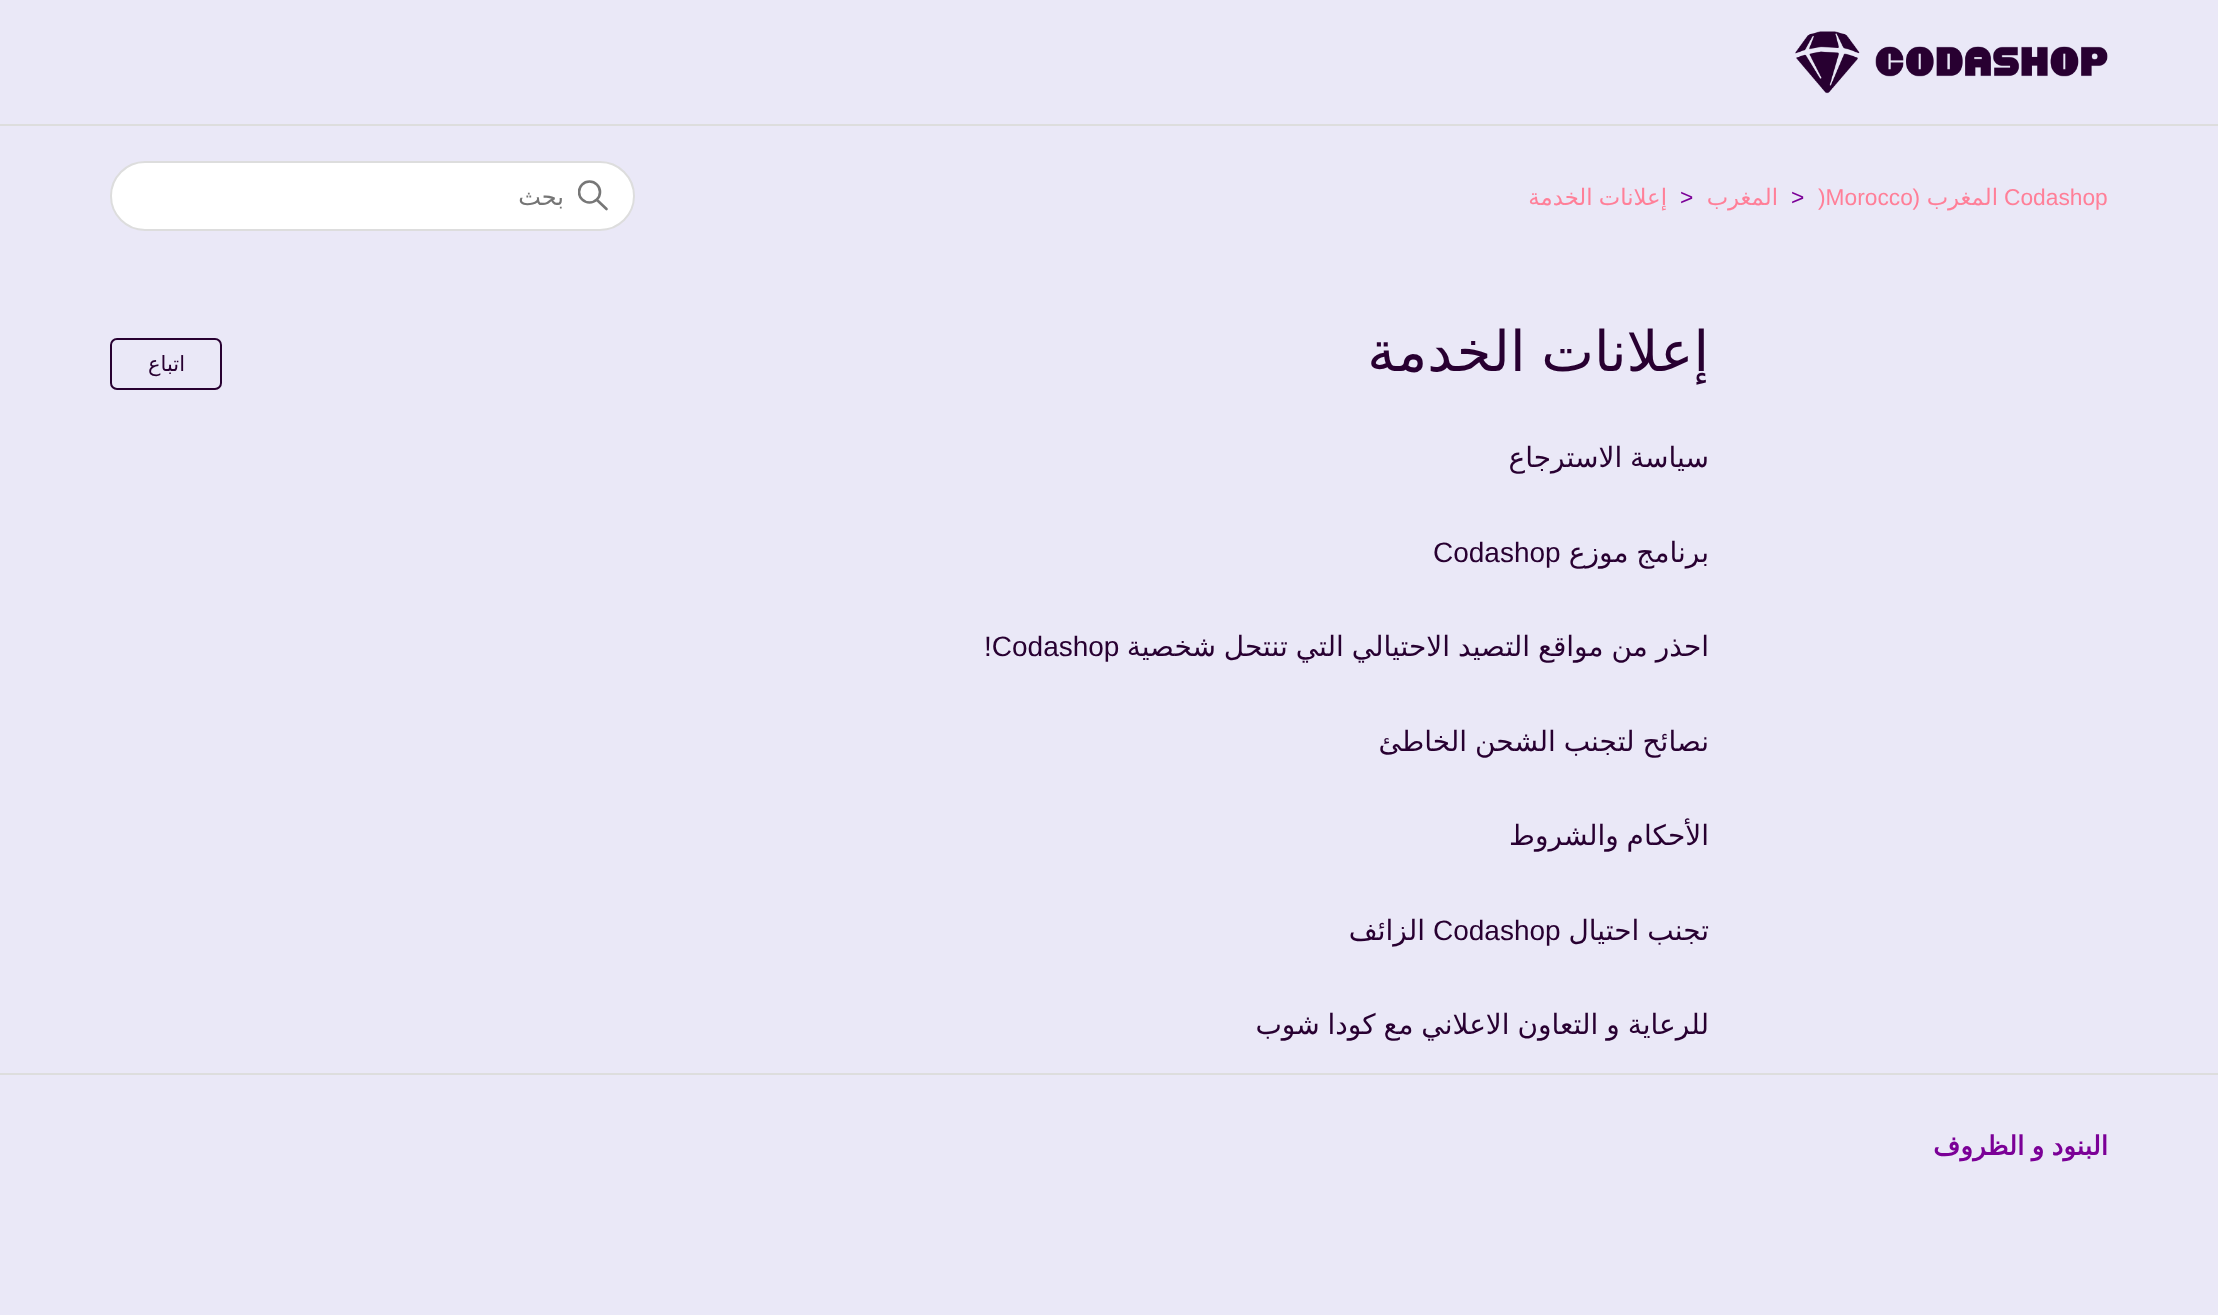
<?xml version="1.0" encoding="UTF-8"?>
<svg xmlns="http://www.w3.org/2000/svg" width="2218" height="1315">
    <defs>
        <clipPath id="clip1"><rect x="578" y="180" width="31" height="32"/></clipPath>
    </defs>
    <rect width="100%" height="100%" fill="#EAE8F7"/>
    <image x="1795" y="31" width="313" height="63" href="img_01.png"/>
    <rect x="0" y="124" width="2218" height="2" fill="#DDDDDD"/>
    <text x="2004" y="205" font-family="Liberation Sans" font-size="22.75" fill="#FF7F98">Codashop</text>
    <text x="1998" y="205" font-family="DejaVu Sans" font-size="22.75" direction="rtl" fill="#FF7F98">المغرب</text>
    <text x="1920" y="205" font-family="Liberation Sans" font-size="22.75" direction="rtl" fill="#FF7F98">(</text>
    <text x="1818" y="205" font-family="Liberation Sans" font-size="22.75" fill="#FF7F98">)Morocco</text>
    <text x="1791" y="205" font-family="Liberation Sans" font-size="22.75" fill="#7B0097">&gt;</text>
    <text x="1778" y="205" font-family="DejaVu Sans" font-size="22.75" direction="rtl" fill="#FF7F98">المغرب</text>
    <text x="1680" y="205" font-family="Liberation Sans" font-size="22.75" fill="#7B0097">&gt;</text>
    <text x="1667" y="205" word-spacing="-1" font-family="DejaVu Sans" font-size="22.75" direction="rtl" fill="#FF7F98">إعلانات الخدمة</text>
    <rect x="111" y="162" width="523" height="68" rx="34" fill="#FFFFFF" stroke="#DDDDDD" stroke-width="2"/>
    <g clip-path="url(#clip1)">
        <circle cx="589.5" cy="192" r="10.5" fill="none" stroke="#777777" stroke-width="2.6"/>
    </g>
    <path d="M 606.5 209 L 597 200" fill="none" stroke="#777777" stroke-width="2.6" stroke-linecap="round"/>
    <text x="564" y="205" font-family="DejaVu Sans" font-size="24" direction="rtl" fill="#757575">بحث</text>
    <text x="1709" y="371" word-spacing="-2" font-family="DejaVu Sans" font-size="56" direction="rtl" fill="#280031">إعلانات الخدمة</text>
    <rect x="111" y="339" width="110" height="50" rx="6" fill="none" stroke="#280031" stroke-width="2"/>
    <text x="185" y="371" font-family="DejaVu Sans" font-size="21" direction="rtl" fill="#280031">اتباع</text>
    <text x="1709" y="467" word-spacing="-1" font-family="DejaVu Sans" font-size="28" direction="rtl" fill="#280031">سياسة الاسترجاع</text>
    <text x="1709" y="562" word-spacing="-1" font-family="DejaVu Sans" font-size="28" direction="rtl" fill="#280031">برنامج موزع</text>
    <text x="1433" y="562" font-family="Liberation Sans" font-size="28" fill="#280031">Codashop</text>
    <text x="1709" y="656" word-spacing="-1" font-family="DejaVu Sans" font-size="28" direction="rtl" fill="#280031">احذر من مواقع التصيد الاحتيالي التي تنتحل شخصية</text>
    <text x="984" y="656" font-family="Liberation Sans" font-size="28" fill="#280031">!Codashop</text>
    <text x="1709" y="751" word-spacing="-1" font-family="DejaVu Sans" font-size="28" direction="rtl" fill="#280031">نصائح لتجنب الشحن الخاطئ</text>
    <text x="1709" y="845" word-spacing="-1" font-family="DejaVu Sans" font-size="28" direction="rtl" fill="#280031">الأحكام والشروط</text>
    <text x="1709" y="940" word-spacing="-1" font-family="DejaVu Sans" font-size="28" direction="rtl" fill="#280031">تجنب احتيال</text>
    <text x="1433" y="940" font-family="Liberation Sans" font-size="28" fill="#280031">Codashop</text>
    <text x="1425" y="940" font-family="DejaVu Sans" font-size="28" direction="rtl" fill="#280031">الزائف</text>
    <text x="1709" y="1034" word-spacing="-1" font-family="DejaVu Sans" font-size="28" direction="rtl" fill="#280031">للرعاية و التعاون الاعلاني مع كودا شوب</text>
    <rect x="0" y="1073" width="2218" height="2" fill="#DDDDDD"/>
    <text x="2108" y="1155" word-spacing="-1" font-family="DejaVu Sans" font-size="26.25" font-weight="700" direction="rtl" fill="#7B0097">البنود و الظروف</text>
</svg>
